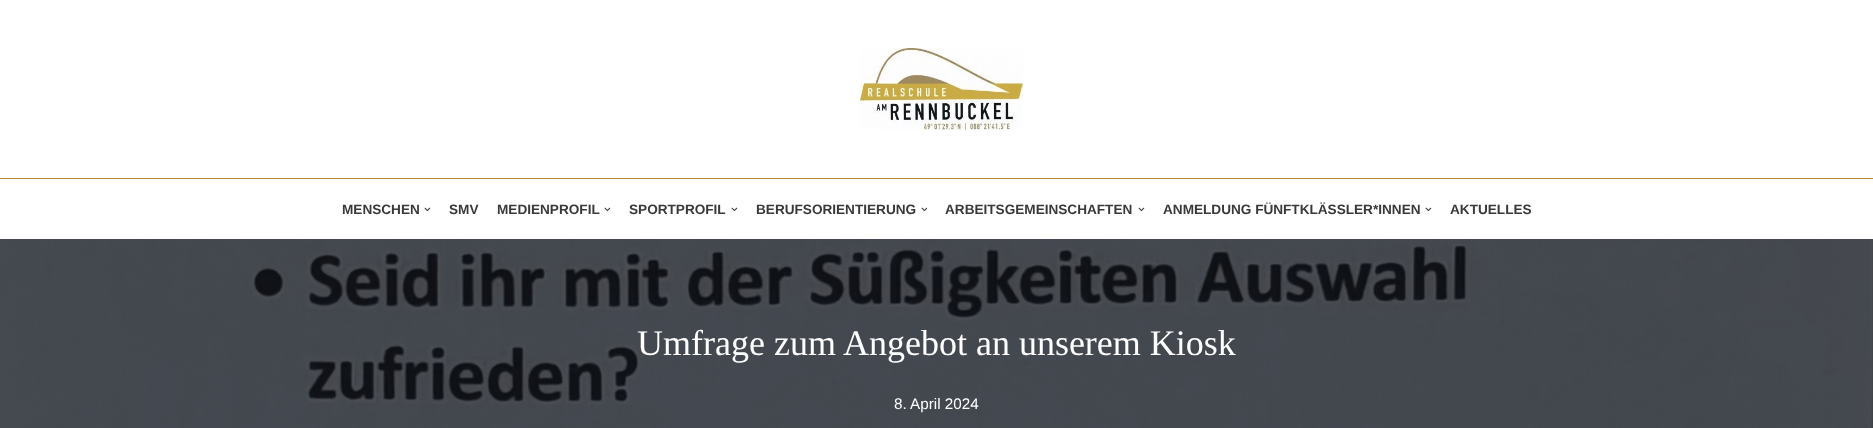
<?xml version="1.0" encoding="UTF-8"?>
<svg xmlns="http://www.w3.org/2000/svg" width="1873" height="428">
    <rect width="100%" height="100%" fill="#FFFFFF"/>
    <rect x="0" y="178" width="1873" height="1" fill="#B08E28"/>
    <image x="860" y="48" width="163" height="82" href="img_01.png"/>
    <text x="342" y="214" font-family="Liberation Sans" font-size="13.6" font-weight="700" fill="#393939">MENSCHEN</text>
    <image x="424" y="207" width="7" height="5" href="img_02.png"/>
    <text x="449" y="214" font-family="Liberation Sans" font-size="13.6" font-weight="700" fill="#393939">SMV</text>
    <text x="497" y="214" font-family="Liberation Sans" font-size="13.6" font-weight="700" fill="#393939">MEDIENPROFIL</text>
    <image x="604" y="207" width="7" height="5" href="img_02.png"/>
    <text x="629" y="214" font-family="Liberation Sans" font-size="13.6" font-weight="700" fill="#393939">SPORTPROFIL</text>
    <image x="731" y="207" width="7" height="5" href="img_02.png"/>
    <text x="756" y="214" font-family="Liberation Sans" font-size="13.6" font-weight="700" fill="#393939">BERUFSORIENTIERUNG</text>
    <image x="921" y="207" width="6" height="5" href="img_03.png"/>
    <text x="945" y="214" font-family="Liberation Sans" font-size="13.6" font-weight="700" fill="#393939">ARBEITSGEMEINSCHAFTEN</text>
    <image x="1138" y="207" width="7" height="5" href="img_02.png"/>
    <text x="1163" y="214" font-family="Liberation Sans" font-size="13.6" font-weight="700" fill="#393939">ANMELDUNG FÜNFTKLÄSSLER*INNEN</text>
    <image x="1425" y="207" width="7" height="5" href="img_02.png"/>
    <text x="1450" y="214" font-family="Liberation Sans" font-size="13.6" font-weight="700" fill="#393939">AKTUELLES</text>
    <image x="0" y="239" width="1873" height="189" href="img_04.png"/>
    <text x="637" y="355" font-family="Liberation Serif" font-size="36" fill="#FFFFFF">Umfrage zum Angebot an unserem Kiosk</text>
    <text x="894" y="409" font-family="Liberation Sans" font-size="15.25" fill="#FFFFFF">8. April 2024</text>
</svg>
